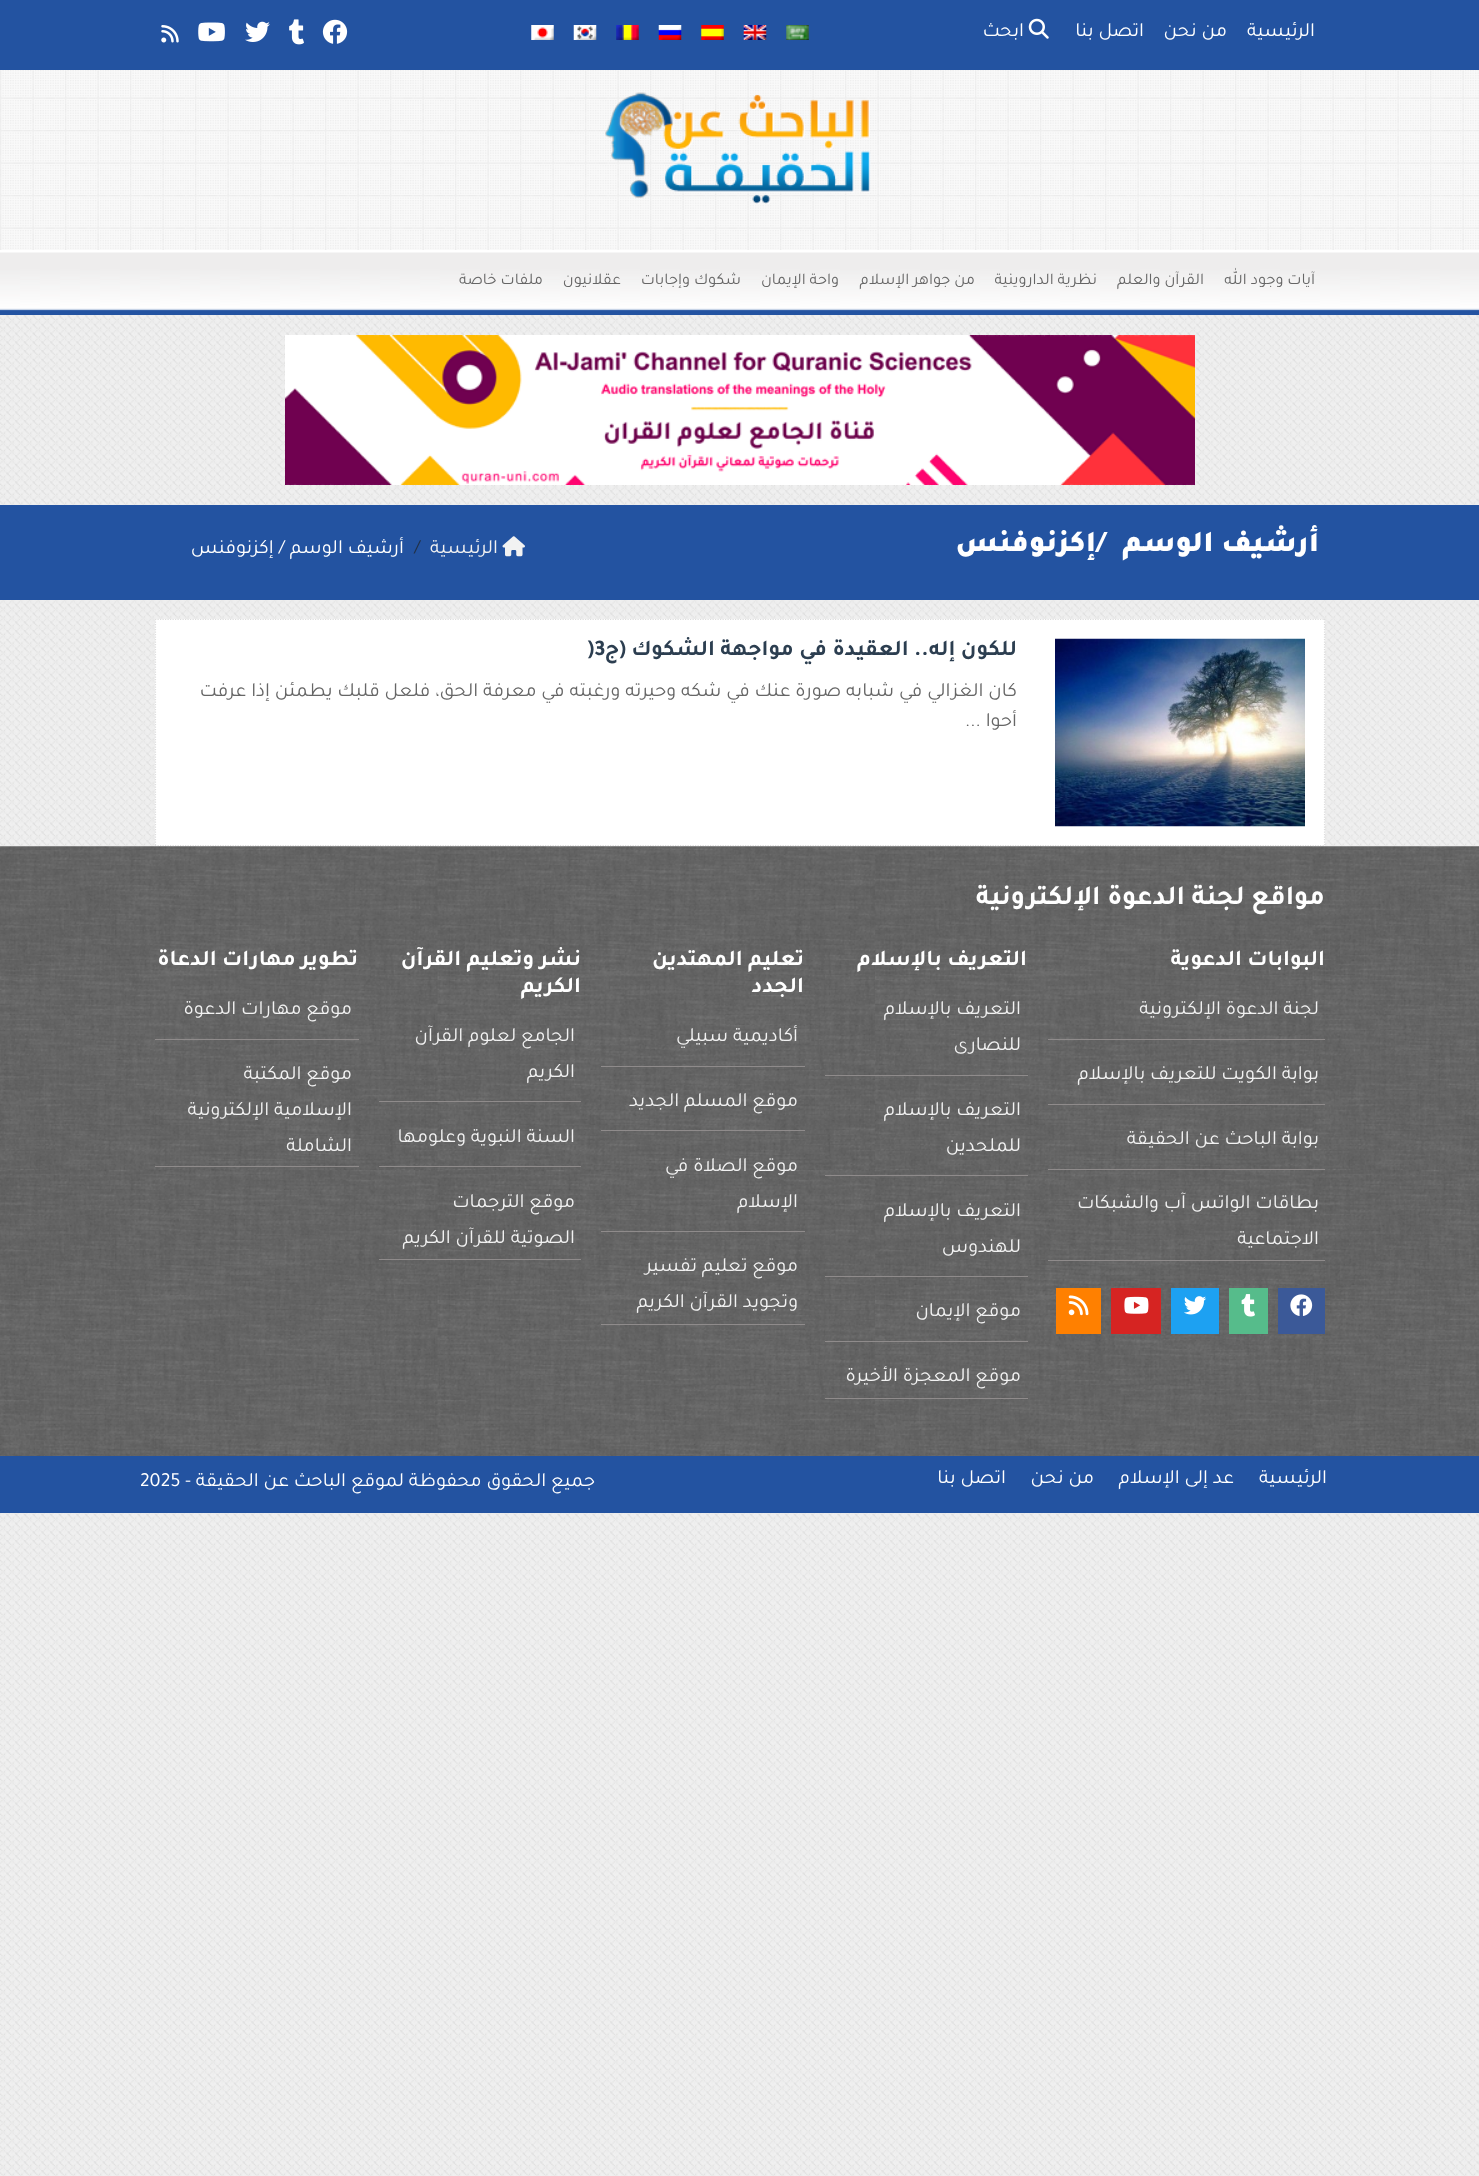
<?xml version="1.0" encoding="UTF-8"?>
<svg xmlns="http://www.w3.org/2000/svg" width="1479" height="2176">
    <rect width="100%" height="100%" fill="#FFFFFF"/>
    <image x="0" y="315" width="1479" height="1861" href="img_01.png"/>
    <image x="0" y="70" width="1479" height="180" href="img_02.png"/>
    <rect x="0" y="0" width="1479" height="70" fill="#2353A1"/>
    <text x="1315" y="36" font-family="Tajawal" font-size="20" direction="rtl" fill="#FFFFFF">الرئيسية</text>
    <text x="1227" y="36" font-family="Tajawal" font-size="20" direction="rtl" fill="#FFFFFF">من نحن</text>
    <text x="1144" y="36" font-family="Tajawal" font-size="20" direction="rtl" fill="#FFFFFF">اتصل بنا</text>
    <image x="1028" y="18" width="21" height="21" href="img_03.png"/>
    <text x="1024" y="36" font-family="Tajawal" font-size="20" direction="rtl" fill="#FFFFFF">ابحث</text>
    <image x="786" y="25" width="23" height="15" href="img_04.png"/>
    <image x="743" y="25" width="24" height="15" href="img_05.png"/>
    <image x="701" y="25" width="23" height="15" href="img_06.png"/>
    <image x="658" y="25" width="24" height="15" href="img_07.png"/>
    <image x="616" y="25" width="23" height="15" href="img_08.png"/>
    <image x="573" y="25" width="24" height="15" href="img_09.png"/>
    <image x="531" y="25" width="23" height="15" href="img_10.png"/>
    <image x="322" y="19" width="26" height="25" href="img_11.png"/>
    <image x="289" y="19" width="15" height="26" href="img_12.png"/>
    <image x="245" y="21" width="25" height="21" href="img_13.png"/>
    <image x="198" y="22" width="27" height="20" href="img_14.png"/>
    <image x="161" y="25" width="18" height="18" href="img_15.png"/>
    <image x="605" y="92" width="266" height="112" href="img_16.png"/>
    <image x="0" y="250" width="1479" height="65" href="img_17.png"/>
    <text x="1315" y="284" font-family="Tajawal" font-size="16.25" direction="rtl" fill="#666666">آيات وجود الله</text>
    <text x="1204" y="284" font-family="Tajawal" font-size="16.25" direction="rtl" fill="#666666">القرآن والعلم</text>
    <text x="1097" y="284" font-family="Tajawal" font-size="16.25" direction="rtl" fill="#666666">نظرية الداروينية</text>
    <text x="975" y="284" font-family="Tajawal" font-size="16.25" direction="rtl" fill="#666666">من جواهر الإسلام</text>
    <text x="839" y="284" font-family="Tajawal" font-size="16.25" direction="rtl" fill="#666666">واحة الإيمان</text>
    <text x="741" y="284" font-family="Tajawal" font-size="16.25" direction="rtl" fill="#666666">شكوك وإجابات</text>
    <text x="621" y="284" font-family="Tajawal" font-size="16.25" direction="rtl" fill="#666666">عقلانيون</text>
    <text x="543" y="284" font-family="Tajawal" font-size="16.25" direction="rtl" fill="#666666">ملفات خاصة</text>
    <image x="285" y="335" width="910" height="150" href="img_18.png"/>
    <rect x="0" y="505" width="1479" height="95" fill="#2353A1"/>
    <text x="1319" y="551" font-family="Tajawal" font-size="30" font-weight="900" direction="rtl" fill="#FFFFFF">أرشيف الوسم</text>
    <text x="1096" y="551" font-family="Tajawal" font-size="30" font-weight="900" fill="#FFFFFF">/</text>
    <text x="1096" y="551" font-family="Tajawal" font-size="30" font-weight="900" direction="rtl" fill="#FFFFFF">إكزنوفنس</text>
    <image x="502" y="536" width="23" height="21" href="img_19.png"/>
    <text x="498" y="553" font-family="Tajawal" font-size="20" direction="rtl" fill="#F2F2F2">الرئيسية</text>
    <text x="414" y="553" font-family="Tajawal" font-size="20" fill="#223147">/</text>
    <text x="404" y="553" font-family="Tajawal" font-size="20" direction="rtl" fill="#FFFFFF">أرشيف الوسم</text>
    <text x="285" y="553" font-family="Tajawal" font-size="20" direction="rtl" fill="#FFFFFF">/ إكزنوفنس</text>
    <rect x="155" y="619" width="1170" height="227" fill="#FFFFFF"/>
    <path d="M 155 619.5 H 1325" fill="none" stroke="#DDDDDD" stroke-width="1.2" stroke-dasharray="1.25 1.25"/>
    <path d="M 1324.5 619 V 846" fill="none" stroke="#DDDDDD" stroke-width="1.2" stroke-dasharray="1.25 1.25"/>
    <image x="0" y="846" width="1479" height="610" href="img_21.png"/>
    <path d="M 155 845.5 H 1325" fill="none" stroke="#DDDDDD" stroke-width="1.2" stroke-dasharray="1.25 1.25"/>
    <path d="M 155.5 619 V 846" fill="none" stroke="#DDDDDD" stroke-width="1.2" stroke-dasharray="1.25 1.25"/>
    <image x="1055" y="638" width="250" height="189" href="img_20.png"/>
    <text x="1017" y="655" font-family="Tajawal" font-size="22.5" font-weight="700" direction="rtl" fill="#2C3E50">للكون إله.. العقيدة في مواجهة الشكوك (ج</text>
    <text x="587" y="655" font-family="Tajawal" font-size="22.5" font-weight="700" fill="#2C3E50">)3</text>
    <text font-family="Tajawal" font-size="20" direction="rtl" fill="#666666">
        <tspan x="1017" y="696">كان الغزالي في شبابه صورة عنك في شكه وحيرته ورغبته في معرفة الحق، فلعل قلبك يطمئن إذا عرفت</tspan>
        <tspan x="1017" y="726">أحوا ...</tspan>
    </text>
    <text x="1325" y="904" font-family="Tajawal" font-size="27.5" font-weight="700" direction="rtl" fill="#FFFFFF">مواقع لجنة الدعوة الإلكترونية</text>
    <text x="1325" y="965" font-family="Tajawal" font-size="22.5" font-weight="700" direction="rtl" fill="#FFFFFF">البوابات الدعوية</text>
    <rect x="1048" y="1039" width="277" height="1" fill="#8F8B8B"/>
    <text x="1319" y="1014" font-family="Tajawal" font-size="20" direction="rtl" fill="#F2F2F2">لجنة الدعوة الإلكترونية</text>
    <rect x="1048" y="1104" width="277" height="1" fill="#8F8B8B"/>
    <text x="1319" y="1079" font-family="Tajawal" font-size="20" direction="rtl" fill="#F2F2F2">بوابة الكويت للتعريف بالإسلام</text>
    <rect x="1048" y="1169" width="277" height="1" fill="#8F8B8B"/>
    <text x="1319" y="1144" font-family="Tajawal" font-size="20" direction="rtl" fill="#F2F2F2">بوابة الباحث عن الحقيقة</text>
    <rect x="1048" y="1260" width="277" height="1" fill="#8F8B8B"/>
    <text font-family="Tajawal" font-size="20" direction="rtl" fill="#F2F2F2">
        <tspan x="1319" y="1208">بطاقات الواتس آب والشبكات</tspan>
        <tspan x="1319" y="1244">الاجتماعية</tspan>
    </text>
    <rect x="1278" y="1288" width="47" height="46" fill="#3B5998"/>
    <image x="1290" y="1294" width="23" height="22" href="img_22.png"/>
    <rect x="1229" y="1288" width="39" height="46" fill="#56BC8B"/>
    <image x="1241" y="1294" width="14" height="23" href="img_23.png"/>
    <rect x="1171" y="1288" width="48" height="46" fill="#1DA1F2"/>
    <image x="1184" y="1296" width="23" height="19" href="img_24.png"/>
    <rect x="1111" y="1288" width="50" height="46" fill="#D62422"/>
    <image x="1124" y="1296" width="25" height="18" href="img_25.png"/>
    <rect x="1056" y="1288" width="45" height="46" fill="#FF8000"/>
    <image x="1068" y="1295" width="21" height="21" href="img_26.png"/>
    <text x="1027" y="965" font-family="Tajawal" font-size="22.5" font-weight="700" direction="rtl" fill="#FFFFFF">التعريف بالإسلام</text>
    <rect x="825" y="1075" width="203" height="1" fill="#8F8B8B"/>
    <text font-family="Tajawal" font-size="20" direction="rtl" fill="#F2F2F2">
        <tspan x="1021" y="1014">التعريف بالإسلام</tspan>
        <tspan x="1021" y="1050">للنصارى</tspan>
    </text>
    <rect x="825" y="1175" width="203" height="1" fill="#8F8B8B"/>
    <text font-family="Tajawal" font-size="20" direction="rtl" fill="#F2F2F2">
        <tspan x="1021" y="1115">التعريف بالإسلام</tspan>
        <tspan x="1021" y="1151">للملحدين</tspan>
    </text>
    <rect x="825" y="1276" width="203" height="1" fill="#8F8B8B"/>
    <text font-family="Tajawal" font-size="20" direction="rtl" fill="#F2F2F2">
        <tspan x="1021" y="1216">التعريف بالإسلام</tspan>
        <tspan x="1021" y="1252">للهندوس</tspan>
    </text>
    <rect x="825" y="1341" width="203" height="1" fill="#8F8B8B"/>
    <text x="1021" y="1316" font-family="Tajawal" font-size="20" direction="rtl" fill="#F2F2F2">موقع الإيمان</text>
    <rect x="825" y="1398" width="203" height="1" fill="#8F8B8B"/>
    <text x="1021" y="1381" font-family="Tajawal" font-size="20" direction="rtl" fill="#F2F2F2">موقع المعجزة الأخيرة</text>
    <text font-family="Tajawal" font-size="22.5" font-weight="700" direction="rtl" fill="#FFFFFF">
        <tspan x="804" y="965">تعليم المهتدين</tspan>
        <tspan x="804" y="992">الجدد</tspan>
    </text>
    <rect x="601" y="1066" width="204" height="1" fill="#8F8B8B"/>
    <text x="798" y="1041" font-family="Tajawal" font-size="20" direction="rtl" fill="#F2F2F2">أكاديمية سبيلي</text>
    <rect x="601" y="1130" width="204" height="1" fill="#8F8B8B"/>
    <text x="798" y="1106" font-family="Tajawal" font-size="20" direction="rtl" fill="#F2F2F2">موقع المسلم الجديد</text>
    <rect x="601" y="1231" width="204" height="1" fill="#8F8B8B"/>
    <text font-family="Tajawal" font-size="20" direction="rtl" fill="#F2F2F2">
        <tspan x="798" y="1171">موقع الصلاة في</tspan>
        <tspan x="798" y="1207">الإسلام</tspan>
    </text>
    <rect x="601" y="1324" width="204" height="1" fill="#8F8B8B"/>
    <text font-family="Tajawal" font-size="20" direction="rtl" fill="#F2F2F2">
        <tspan x="798" y="1271">موقع تعليم تفسير</tspan>
        <tspan x="798" y="1307">وتجويد القرآن الكريم</tspan>
    </text>
    <text font-family="Tajawal" font-size="22.5" font-weight="700" direction="rtl" fill="#FFFFFF">
        <tspan x="581" y="965">نشر وتعليم القرآن</tspan>
        <tspan x="581" y="992">الكريم</tspan>
    </text>
    <rect x="379" y="1101" width="202" height="1" fill="#8F8B8B"/>
    <text font-family="Tajawal" font-size="20" direction="rtl" fill="#F2F2F2">
        <tspan x="575" y="1041">الجامع لعلوم القرآن</tspan>
        <tspan x="575" y="1077">الكريم</tspan>
    </text>
    <rect x="379" y="1166" width="202" height="1" fill="#8F8B8B"/>
    <text x="575" y="1142" font-family="Tajawal" font-size="20" direction="rtl" fill="#F2F2F2">السنة النبوية وعلومها</text>
    <rect x="379" y="1259" width="202" height="1" fill="#8F8B8B"/>
    <text font-family="Tajawal" font-size="20" direction="rtl" fill="#F2F2F2">
        <tspan x="575" y="1207">موقع الترجمات</tspan>
        <tspan x="575" y="1243">الصوتية للقرآن الكريم</tspan>
    </text>
    <text x="358" y="965" font-family="Tajawal" font-size="22.5" font-weight="700" direction="rtl" fill="#FFFFFF">تطوير مهارات الدعاة</text>
    <rect x="155" y="1039" width="204" height="1" fill="#8F8B8B"/>
    <text x="352" y="1014" font-family="Tajawal" font-size="20" direction="rtl" fill="#F2F2F2">موقع مهارات الدعوة</text>
    <rect x="155" y="1166" width="204" height="1" fill="#8F8B8B"/>
    <text font-family="Tajawal" font-size="20" direction="rtl" fill="#F2F2F2">
        <tspan x="352" y="1079">موقع المكتبة</tspan>
        <tspan x="352" y="1115">الإسلامية الإلكترونية</tspan>
        <tspan x="352" y="1151">الشاملة</tspan>
    </text>
    <rect x="0" y="1456" width="1479" height="57" fill="#2353A1"/>
    <text x="1327" y="1483" font-family="Tajawal" font-size="20" direction="rtl" fill="#FFFFFF">الرئيسية</text>
    <text x="1234" y="1483" font-family="Tajawal" font-size="20" direction="rtl" fill="#FFFFFF">عد إلى الإسلام</text>
    <text x="1094" y="1483" font-family="Tajawal" font-size="20" direction="rtl" fill="#FFFFFF">من نحن</text>
    <text x="1006" y="1483" font-family="Tajawal" font-size="20" direction="rtl" fill="#FFFFFF">اتصل بنا</text>
    <text x="595" y="1486" font-family="Tajawal" font-size="20" direction="rtl" fill="#FFFFFF">جميع الحقوق محفوظة لموقع</text>
    <text x="346" y="1486" font-family="Tajawal" font-size="20" direction="rtl" fill="#FFFFFF">الباحث عن الحقيقة</text>
    <text x="140" y="1486" font-family="Tajawal" font-size="20" fill="#FFFFFF">2025 -</text>
</svg>
